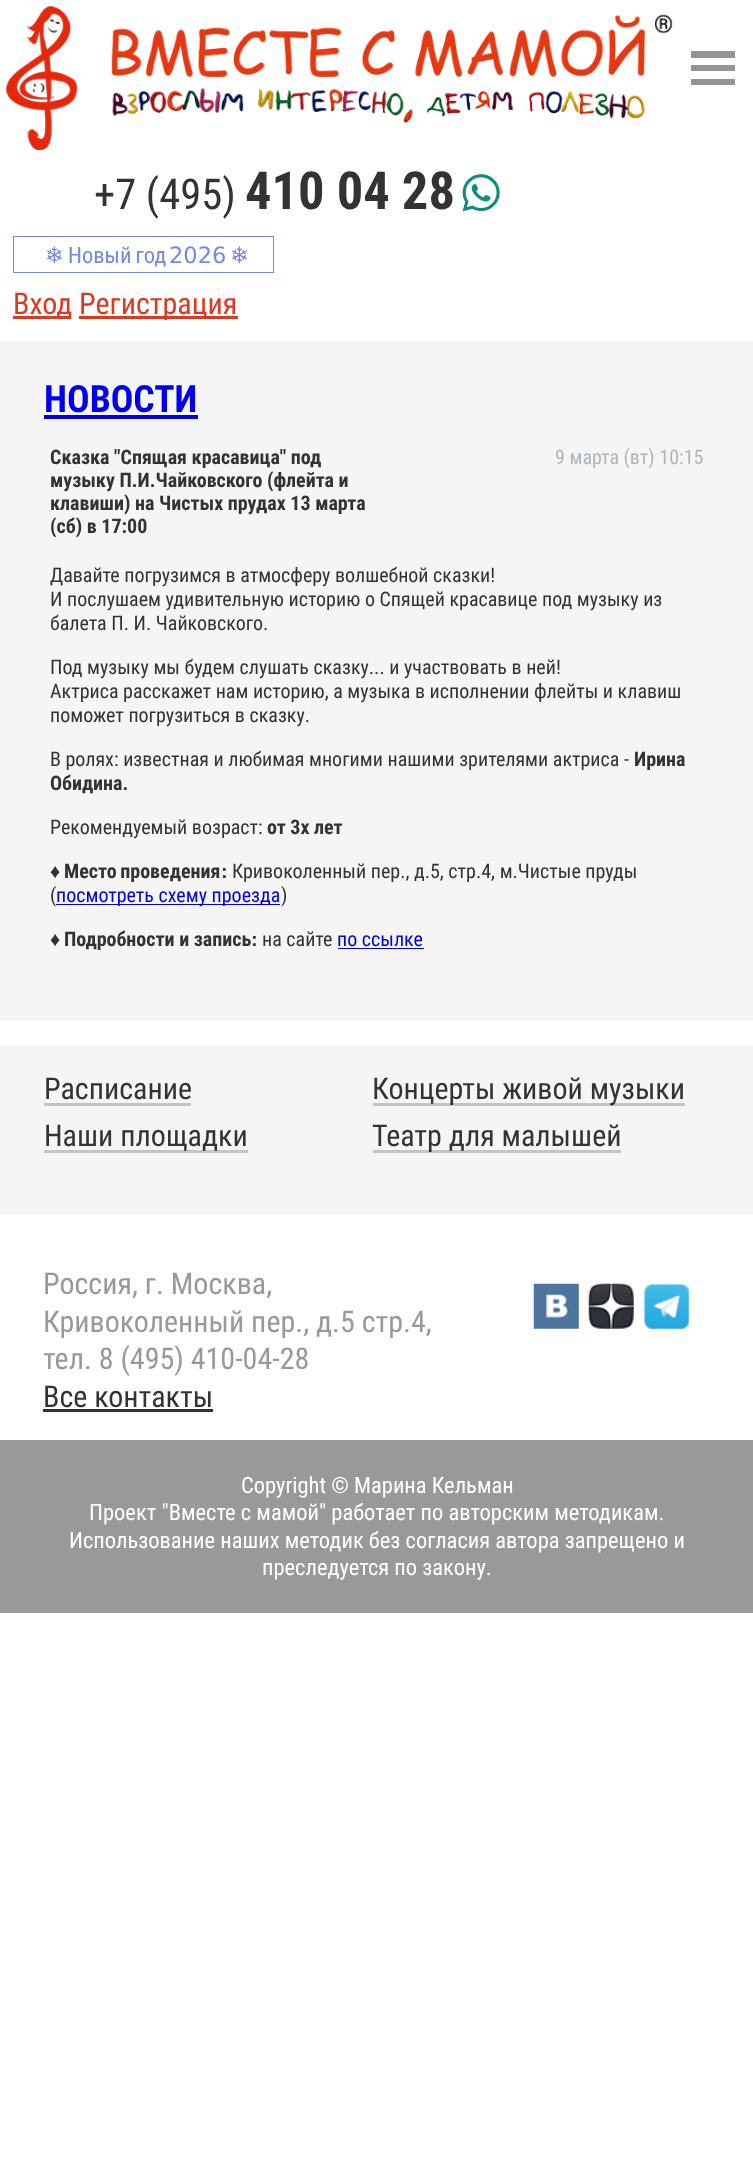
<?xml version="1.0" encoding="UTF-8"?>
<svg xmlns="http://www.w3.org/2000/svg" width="753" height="2183">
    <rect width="100%" height="100%" fill="#FFFFFF"/>
    <image x="6" y="6" width="667" height="144" href="img_01.png"/>
    <rect x="691" y="51" width="44" height="7" fill="#949494"/>
    <rect x="691" y="65" width="44" height="6" fill="#949494"/>
    <rect x="691" y="79" width="44" height="6" fill="#949494"/>
    <text x="94" y="209" font-family="Roboto Condensed" font-size="42.5" fill="#333333">+7 (495)</text>
    <text x="245" y="209" font-family="Roboto Condensed" font-size="52.5" font-weight="700" fill="#333333">410 04 28</text>
    <image x="462" y="174" width="38" height="38" href="img_02.png"/>
    <rect x="13.5" y="236.5" width="260" height="36" fill="none" stroke="#7588E5"/>
    <text x="45" y="263" font-family="DejaVu Sans" font-size="22.5" fill="#7588E5">❄</text>
    <text x="68" y="263" word-spacing="-1" font-family="Roboto Condensed" font-size="22.5" fill="#7588E5">Новый год</text>
    <text x="169" y="263" font-family="DejaVu Sans" font-size="22.5" fill="#7588E5">2026</text>
    <text x="230" y="263" font-family="DejaVu Sans" font-size="22.5" fill="#7588E5">❄</text>
    <rect x="13" y="316" width="58" height="3" fill="#DE381E"/>
    <text x="13" y="314" font-family="Roboto Condensed" font-size="30" fill="#DE381E">Вход</text>
    <rect x="79" y="316" width="159" height="3" fill="#DE381E"/>
    <text x="79" y="314" font-family="Roboto Condensed" font-size="30" fill="#DE381E">Регистрация</text>
    <rect x="0" y="341" width="753" height="680" fill="#F5F5F5"/>
    <text x="44" y="412" font-family="Roboto Condensed" font-size="37.5" font-weight="700" fill="#0000EE">НОВОСТИ</text>
    <rect x="44" y="415" width="154" height="4" fill="#0000EE"/>
    <text font-family="Roboto Condensed" font-size="20" font-weight="700" fill="#333333">
        <tspan x="50" y="464">Сказка "Спящая красавица" под</tspan>
        <tspan x="50" y="487">музыку П.И.Чайковского (флейта и</tspan>
        <tspan x="50" y="510">клавиши) на Чистых прудах 13 марта</tspan>
        <tspan x="50" y="533">(сб) в 17:00</tspan>
    </text>
    <text x="555" y="464" font-family="Roboto Condensed" font-size="20" fill="#ADB5BD">9 марта (вт) 10:15</text>
    <text font-family="Roboto Condensed" font-size="20" fill="#333333">
        <tspan x="50" y="582">Давайте погрузимся в атмосферу волшебной сказки!</tspan>
        <tspan x="50" y="606">И послушаем удивительную историю о Спящей красавице под музыку из</tspan>
        <tspan x="50" y="630">балета П. И. Чайковского.</tspan>
    </text>
    <text font-family="Roboto Condensed" font-size="20" fill="#333333">
        <tspan x="50" y="674">Под музыку мы будем слушать сказку... и участвовать в ней!</tspan>
        <tspan x="50" y="698">Актриса расскажет нам историю, а музыка в исполнении флейты и клавиш</tspan>
        <tspan x="50" y="722">поможет погрузиться в сказку.</tspan>
    </text>
    <text x="50" y="766" font-family="Roboto Condensed" font-size="20" fill="#333333">В ролях: известная и любимая многими нашими зрителями актриса -</text>
    <text x="634" y="766" font-family="Roboto Condensed" font-size="20" font-weight="700" fill="#333333">Ирина</text>
    <text x="50" y="790" font-family="Roboto Condensed" font-size="20" font-weight="700" fill="#333333">Обидина.</text>
    <text x="50" y="834" font-family="Roboto Condensed" font-size="20" fill="#333333">Рекомендуемый возраст:</text>
    <text x="267" y="834" font-family="Roboto Condensed" font-size="20" font-weight="700" fill="#333333">от 3х лет</text>
    <text x="50" y="878" font-family="Liberation Sans" font-size="20" font-weight="700" fill="#333333">♦</text>
    <text x="64" y="878" word-spacing="-1" font-family="Roboto Condensed" font-size="20" font-weight="700" fill="#333333">Место проведения</text>
    <text x="221" y="878" font-family="Liberation Sans" font-size="20" font-weight="700" fill="#333333">:</text>
    <text x="232" y="878" font-family="Roboto Condensed" font-size="20" fill="#333333">Кривоколенный пер., д.5, стр.4, м.Чистые пруды</text>
    <text x="50" y="902" font-family="Roboto Condensed" font-size="20" fill="#333333">(</text>
    <rect x="56" y="904" width="224" height="1" fill="#0000EE"/>
    <text x="56" y="902" font-family="Roboto Condensed" font-size="20" fill="#0000EE">посмотреть схему проезда</text>
    <text x="281" y="902" font-family="Roboto Condensed" font-size="20" fill="#333333">)</text>
    <text x="50" y="946" font-family="Liberation Sans" font-size="20" font-weight="700" fill="#333333">♦</text>
    <text x="64" y="946" font-family="Roboto Condensed" font-size="20" font-weight="700" fill="#333333">Подробности и запись</text>
    <text x="251" y="946" font-family="Liberation Sans" font-size="20" font-weight="700" fill="#333333">:</text>
    <text x="262" y="946" font-family="Roboto Condensed" font-size="20" fill="#333333">на сайте</text>
    <text x="337" y="946" font-family="Roboto Condensed" font-size="20" fill="#0000EE">по ссылке</text>
    <rect x="338" y="948" width="86" height="1" fill="#0000EE"/>
    <rect x="0" y="1046" width="753" height="169" fill="#F5F5F5"/>
    <text x="44" y="1099" font-family="Roboto Condensed" font-size="30" fill="#333333">Расписание</text>
    <rect x="44" y="1103" width="147" height="3" fill="#C4C4C4"/>
    <text x="44" y="1146" font-family="Roboto Condensed" font-size="30" fill="#333333">Наши площадки</text>
    <rect x="44" y="1150" width="204" height="3" fill="#000000" fill-opacity="0.2"/>
    <text x="372" y="1099" font-family="Roboto Condensed" font-size="30" fill="#333333">Концерты живой музыки</text>
    <rect x="373" y="1103" width="312" height="3" fill="#000000" fill-opacity="0.2"/>
    <text x="372" y="1146" font-family="Roboto Condensed" font-size="30" fill="#333333">Театр для малышей</text>
    <rect x="373" y="1150" width="248" height="3" fill="#000000" fill-opacity="0.2"/>
    <text font-family="Roboto Condensed" font-size="30" fill="#999999">
        <tspan x="43" y="1294">Россия, г. Москва,</tspan>
        <tspan x="43" y="1332">Кривоколенный пер., д.5 стр.4,</tspan>
        <tspan x="43" y="1369">тел. 8 (495) 410-04-28</tspan>
    </text>
    <text x="43" y="1407" font-family="Roboto Condensed" font-size="30" fill="#333333">Все контакты</text>
    <rect x="43" y="1409" width="170" height="3" fill="#333333"/>
    <image x="533" y="1283" width="46" height="46" href="img_03.png"/>
    <image x="588" y="1283" width="46" height="46" href="img_04.png"/>
    <image x="643" y="1283" width="46" height="46" href="img_05.png"/>
    <rect x="0" y="1440" width="753" height="173" fill="#999999"/>
    <text x="241" y="1493" font-family="Roboto Condensed" font-size="22.5" fill="#FFFFFF">Copyright © Марина Кельман</text>
    <text x="89" y="1520" font-family="Roboto Condensed" font-size="22.5" fill="#FFFFFF">Проект "Вместе с мамой" работает по авторским методикам.</text>
    <text x="69" y="1548" font-family="Roboto Condensed" font-size="22.5" fill="#FFFFFF">Использование наших методик без согласия автора запрещено и</text>
    <text x="262" y="1575" font-family="Roboto Condensed" font-size="22.5" fill="#FFFFFF">преследуется по закону.</text>
</svg>
